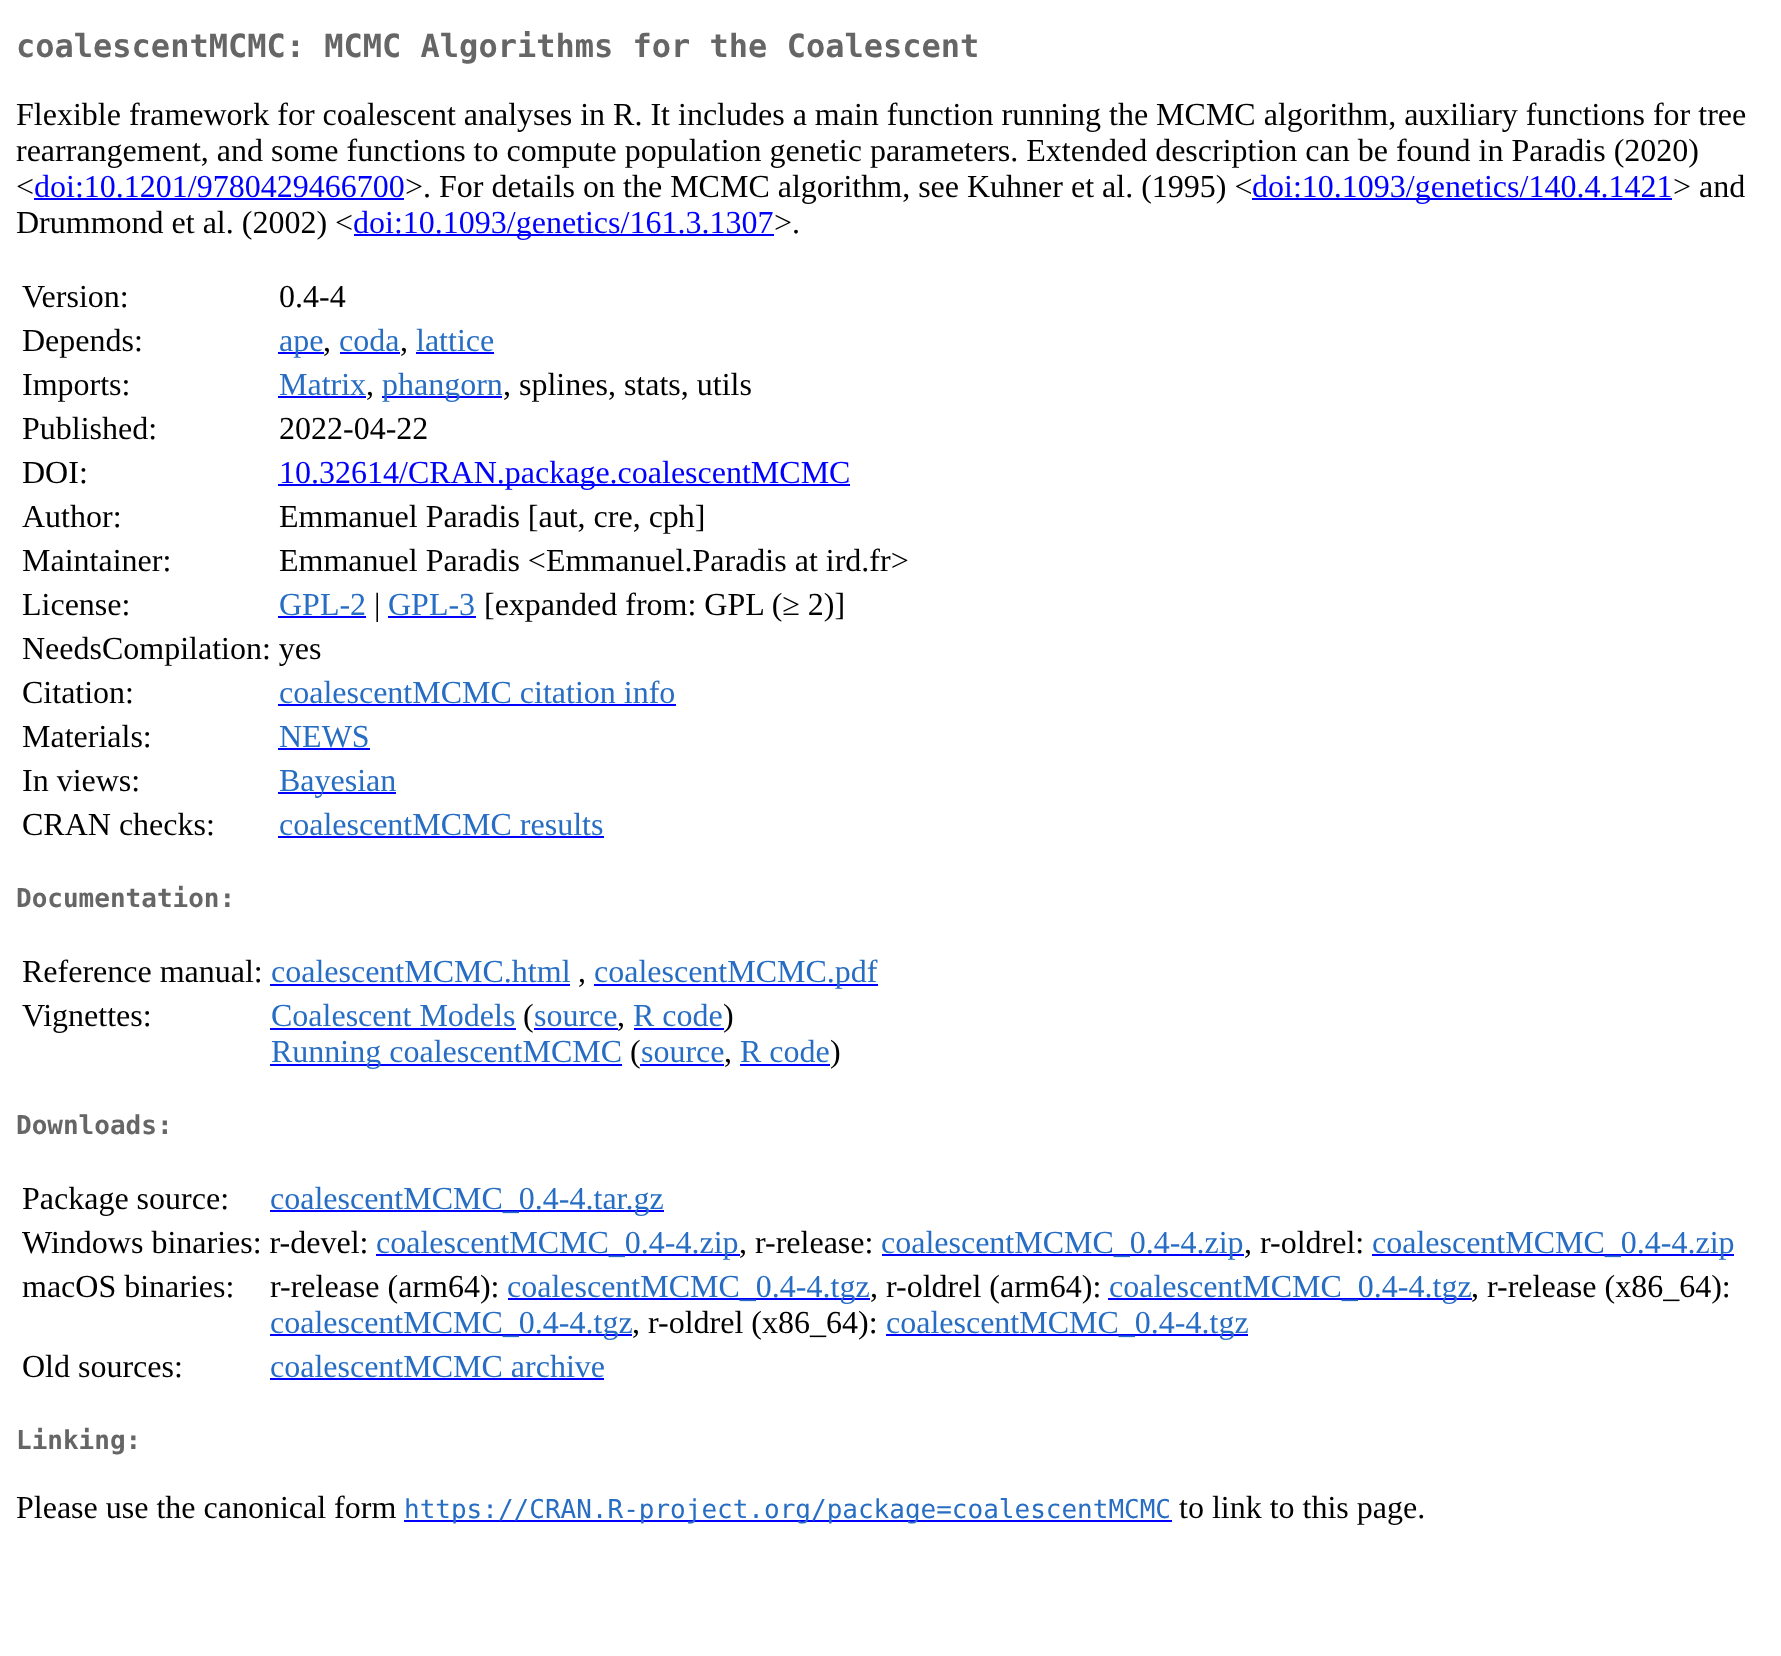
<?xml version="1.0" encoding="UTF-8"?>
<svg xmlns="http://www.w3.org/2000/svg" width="1781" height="1656">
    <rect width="100%" height="100%" fill="#FFFFFF"/>
    <text x="16" y="57" font-family="DejaVu Sans Mono" font-size="32" font-weight="700" fill="#666666">coalescentMCMC: MCMC Algorithms for the Coalescent</text>
    <text font-family="Liberation Serif" font-size="32" fill="#000000">
        <tspan x="16" y="125">Flexible framework for coalescent analyses in R. It includes a main function running the MCMC algorithm, auxiliary functions for tree</tspan>
        <tspan x="16" y="161">rearrangement, and some functions to compute population genetic parameters. Extended description can be found in Paradis (2020)</tspan>
        <tspan x="16" y="197">&lt;</tspan>
    </text>
    <text x="34" y="197" font-family="Liberation Serif" font-size="32" fill="#0000FF">doi:10.1201/9780429466700</text>
    <rect x="34" y="198" width="370" height="2" fill="#0000FF"/>
    <text x="405" y="197" font-family="Liberation Serif" font-size="32" fill="#000000">&gt;. For details on the MCMC algorithm, see Kuhner et al. (1995) &lt;</text>
    <rect x="1252" y="198" width="420" height="2" fill="#0000FF"/>
    <text x="1252" y="197" font-family="Liberation Serif" font-size="32" fill="#0000FF">doi:10.1093/genetics/140.4.1421</text>
    <text x="1673" y="197" font-family="Liberation Serif" font-size="32" fill="#000000">&gt; and</text>
    <text x="16" y="233" font-family="Liberation Serif" font-size="32" fill="#000000">Drummond et al. (2002) &lt;</text>
    <rect x="354" y="234" width="420" height="2" fill="#0000FF"/>
    <text x="353" y="233" font-family="Liberation Serif" font-size="32" fill="#0000FF">doi:10.1093/genetics/161.3.1307</text>
    <text x="774" y="233" font-family="Liberation Serif" font-size="32" fill="#000000">&gt;.</text>
    <text x="22" y="307" font-family="Liberation Serif" font-size="32" fill="#000000">Version:</text>
    <text x="279" y="307" font-family="Liberation Serif" font-size="32" fill="#000000">0.4-4</text>
    <text x="22" y="351" font-family="Liberation Serif" font-size="32" fill="#000000">Depends:</text>
    <rect x="278" y="352" width="46" height="2" fill="#0000FF"/>
    <text x="279" y="351" font-family="Liberation Serif" font-size="32" fill="#276DC3">ape</text>
    <text x="323" y="351" font-family="Liberation Serif" font-size="32" fill="#000000">,</text>
    <text x="339" y="351" font-family="Liberation Serif" font-size="32" fill="#276DC3">coda</text>
    <rect x="340" y="352" width="60" height="2" fill="#0000FF"/>
    <text x="400" y="351" font-family="Liberation Serif" font-size="32" fill="#000000">,</text>
    <text x="416" y="351" font-family="Liberation Serif" font-size="32" fill="#276DC3">lattice</text>
    <rect x="416" y="352" width="78" height="2" fill="#0000FF"/>
    <text x="22" y="395" font-family="Liberation Serif" font-size="32" fill="#000000">Imports:</text>
    <text x="279" y="395" font-family="Liberation Serif" font-size="32" fill="#276DC3">Matrix</text>
    <rect x="278" y="396" width="88" height="2" fill="#0000FF"/>
    <text x="366" y="395" font-family="Liberation Serif" font-size="32" fill="#000000">,</text>
    <rect x="382" y="396" width="120" height="2" fill="#0000FF"/>
    <text x="382" y="395" font-family="Liberation Serif" font-size="32" fill="#276DC3">phangorn</text>
    <text x="503" y="395" font-family="Liberation Serif" font-size="32" fill="#000000">, splines, stats, utils</text>
    <text x="22" y="439" font-family="Liberation Serif" font-size="32" fill="#000000">Published:</text>
    <text x="279" y="439" font-family="Liberation Serif" font-size="32" fill="#000000">2022-04-22</text>
    <text x="22" y="483" font-family="Liberation Serif" font-size="32" fill="#000000">DOI:</text>
    <rect x="278" y="484" width="572" height="2" fill="#0000FF"/>
    <text x="279" y="483" font-family="Liberation Serif" font-size="32" fill="#0000FF">10.32614/CRAN.package.coalescentMCMC</text>
    <text x="22" y="527" font-family="Liberation Serif" font-size="32" fill="#000000">Author:</text>
    <text x="279" y="527" font-family="Liberation Serif" font-size="32" fill="#000000">Emmanuel Paradis [aut, cre, cph]</text>
    <text x="22" y="571" font-family="Liberation Serif" font-size="32" fill="#000000">Maintainer:</text>
    <text x="279" y="571" font-family="Liberation Serif" font-size="32" fill="#000000">Emmanuel Paradis &lt;Emmanuel.Paradis at ird.fr&gt;</text>
    <text x="22" y="615" font-family="Liberation Serif" font-size="32" fill="#000000">License:</text>
    <text x="279" y="615" font-family="Liberation Serif" font-size="32" fill="#276DC3">GPL-2</text>
    <rect x="278" y="616" width="88" height="2" fill="#0000FF"/>
    <text x="374" y="615" font-family="Liberation Serif" font-size="32" fill="#000000">|</text>
    <text x="388" y="615" font-family="Liberation Serif" font-size="32" fill="#276DC3">GPL-3</text>
    <rect x="388" y="616" width="88" height="2" fill="#0000FF"/>
    <text x="484" y="615" font-family="Liberation Serif" font-size="32" fill="#000000">[expanded from: GPL (≥ 2)]</text>
    <text font-family="Liberation Serif" font-size="32" fill="#000000">
        <tspan x="22" y="659">NeedsCompilation: yes</tspan>
        <tspan x="22" y="703">Citation:</tspan>
    </text>
    <text x="279" y="703" font-family="Liberation Serif" font-size="32" fill="#276DC3">coalescentMCMC citation info</text>
    <rect x="278" y="704" width="398" height="2" fill="#0000FF"/>
    <text x="22" y="747" font-family="Liberation Serif" font-size="32" fill="#000000">Materials:</text>
    <text x="279" y="747" font-family="Liberation Serif" font-size="32" fill="#276DC3">NEWS</text>
    <rect x="278" y="748" width="92" height="2" fill="#0000FF"/>
    <text x="22" y="791" font-family="Liberation Serif" font-size="32" fill="#000000">In views:</text>
    <rect x="278" y="792" width="118" height="2" fill="#0000FF"/>
    <text x="279" y="791" font-family="Liberation Serif" font-size="32" fill="#276DC3">Bayesian</text>
    <text x="22" y="835" font-family="Liberation Serif" font-size="32" fill="#000000">CRAN checks:</text>
    <text x="279" y="835" font-family="Liberation Serif" font-size="32" fill="#276DC3">coalescentMCMC results</text>
    <rect x="278" y="836" width="326" height="2" fill="#0000FF"/>
    <text x="16" y="907" font-family="DejaVu Sans Mono" font-size="26" font-weight="700" fill="#666666">Documentation:</text>
    <text x="22" y="982" font-family="Liberation Serif" font-size="32" fill="#000000">Reference manual:</text>
    <text x="271" y="982" font-family="Liberation Serif" font-size="32" fill="#276DC3">coalescentMCMC.html</text>
    <rect x="270" y="984" width="300" height="2" fill="#0000FF"/>
    <text x="578" y="982" font-family="Liberation Serif" font-size="32" fill="#000000">,</text>
    <rect x="594" y="984" width="284" height="2" fill="#0000FF"/>
    <text x="594" y="982" font-family="Liberation Serif" font-size="32" fill="#276DC3">coalescentMCMC.pdf</text>
    <text x="22" y="1026" font-family="Liberation Serif" font-size="32" fill="#000000">Vignettes:</text>
    <text x="271" y="1026" font-family="Liberation Serif" font-size="32" fill="#276DC3">Coalescent Models</text>
    <rect x="270" y="1028" width="246" height="2" fill="#0000FF"/>
    <text x="523" y="1026" font-family="Liberation Serif" font-size="32" fill="#000000">(</text>
    <text x="534" y="1026" font-family="Liberation Serif" font-size="32" fill="#276DC3">source</text>
    <rect x="534" y="1028" width="84" height="2" fill="#0000FF"/>
    <text x="617" y="1026" font-family="Liberation Serif" font-size="32" fill="#000000">,</text>
    <text x="633" y="1026" font-family="Liberation Serif" font-size="32" fill="#276DC3">R code</text>
    <rect x="634" y="1028" width="90" height="2" fill="#0000FF"/>
    <text x="723" y="1026" font-family="Liberation Serif" font-size="32" fill="#000000">)</text>
    <rect x="270" y="1064" width="352" height="2" fill="#0000FF"/>
    <text x="271" y="1062" font-family="Liberation Serif" font-size="32" fill="#276DC3">Running coalescentMCMC</text>
    <text x="630" y="1062" font-family="Liberation Serif" font-size="32" fill="#000000">(</text>
    <text x="641" y="1062" font-family="Liberation Serif" font-size="32" fill="#276DC3">source</text>
    <rect x="640" y="1064" width="84" height="2" fill="#0000FF"/>
    <text x="724" y="1062" font-family="Liberation Serif" font-size="32" fill="#000000">,</text>
    <text x="740" y="1062" font-family="Liberation Serif" font-size="32" fill="#276DC3">R code</text>
    <rect x="740" y="1064" width="90" height="2" fill="#0000FF"/>
    <text x="830" y="1062" font-family="Liberation Serif" font-size="32" fill="#000000">)</text>
    <text x="16" y="1134" font-family="DejaVu Sans Mono" font-size="26" font-weight="700" fill="#666666">Downloads:</text>
    <text x="22" y="1209" font-family="Liberation Serif" font-size="32" fill="#000000">Package source:</text>
    <rect x="270" y="1210" width="394" height="2" fill="#0000FF"/>
    <text x="270" y="1209" font-family="Liberation Serif" font-size="32" fill="#276DC3">coalescentMCMC_0.4-4.tar.gz</text>
    <text x="22" y="1253" font-family="Liberation Serif" font-size="32" fill="#000000">Windows binaries: r-devel:</text>
    <rect x="376" y="1254" width="364" height="2" fill="#0000FF"/>
    <text x="376" y="1253" font-family="Liberation Serif" font-size="32" fill="#276DC3">coalescentMCMC_0.4-4.zip</text>
    <text x="739" y="1253" font-family="Liberation Serif" font-size="32" fill="#000000">, r-release:</text>
    <rect x="882" y="1254" width="362" height="2" fill="#0000FF"/>
    <text x="881" y="1253" font-family="Liberation Serif" font-size="32" fill="#276DC3">coalescentMCMC_0.4-4.zip</text>
    <text x="1244" y="1253" font-family="Liberation Serif" font-size="32" fill="#000000">, r-oldrel:</text>
    <rect x="1372" y="1254" width="362" height="2" fill="#0000FF"/>
    <text x="1372" y="1253" font-family="Liberation Serif" font-size="32" fill="#276DC3">coalescentMCMC_0.4-4.zip</text>
    <text x="22" y="1297" font-family="Liberation Serif" font-size="32" fill="#000000">macOS binaries:</text>
    <text x="270" y="1297" font-family="Liberation Serif" font-size="32" fill="#000000">r-release (arm64):</text>
    <rect x="508" y="1298" width="362" height="2" fill="#0000FF"/>
    <text x="507" y="1297" font-family="Liberation Serif" font-size="32" fill="#276DC3">coalescentMCMC_0.4-4.tgz</text>
    <text x="870" y="1297" font-family="Liberation Serif" font-size="32" fill="#000000">, r-oldrel (arm64):</text>
    <rect x="1108" y="1298" width="364" height="2" fill="#0000FF"/>
    <text x="1109" y="1297" font-family="Liberation Serif" font-size="32" fill="#276DC3">coalescentMCMC_0.4-4.tgz</text>
    <text x="1471" y="1297" font-family="Liberation Serif" font-size="32" fill="#000000">, r-release (x86_64):</text>
    <rect x="270" y="1334" width="362" height="2" fill="#0000FF"/>
    <text x="270" y="1333" font-family="Liberation Serif" font-size="32" fill="#276DC3">coalescentMCMC_0.4-4.tgz</text>
    <text x="632" y="1333" font-family="Liberation Serif" font-size="32" fill="#000000">, r-oldrel (x86_64):</text>
    <rect x="886" y="1334" width="362" height="2" fill="#0000FF"/>
    <text x="886" y="1333" font-family="Liberation Serif" font-size="32" fill="#276DC3">coalescentMCMC_0.4-4.tgz</text>
    <text x="22" y="1377" font-family="Liberation Serif" font-size="32" fill="#000000">Old sources:</text>
    <text x="270" y="1377" font-family="Liberation Serif" font-size="32" fill="#276DC3">coalescentMCMC archive</text>
    <rect x="270" y="1378" width="334" height="2" fill="#0000FF"/>
    <text x="16" y="1449" font-family="DejaVu Sans Mono" font-size="26" font-weight="700" fill="#666666">Linking:</text>
    <text x="16" y="1518" font-family="Liberation Serif" font-size="32" fill="#000000">Please use the canonical form</text>
    <rect x="404" y="1520" width="768" height="2" fill="#0000FF"/>
    <text x="404" y="1518" font-family="DejaVu Sans Mono" font-size="26" fill="#276DC3">https://CRAN.R-project.org/package=coalescentMCMC</text>
    <text x="1179" y="1518" font-family="Liberation Serif" font-size="32" fill="#000000">to link to this page.</text>
</svg>
